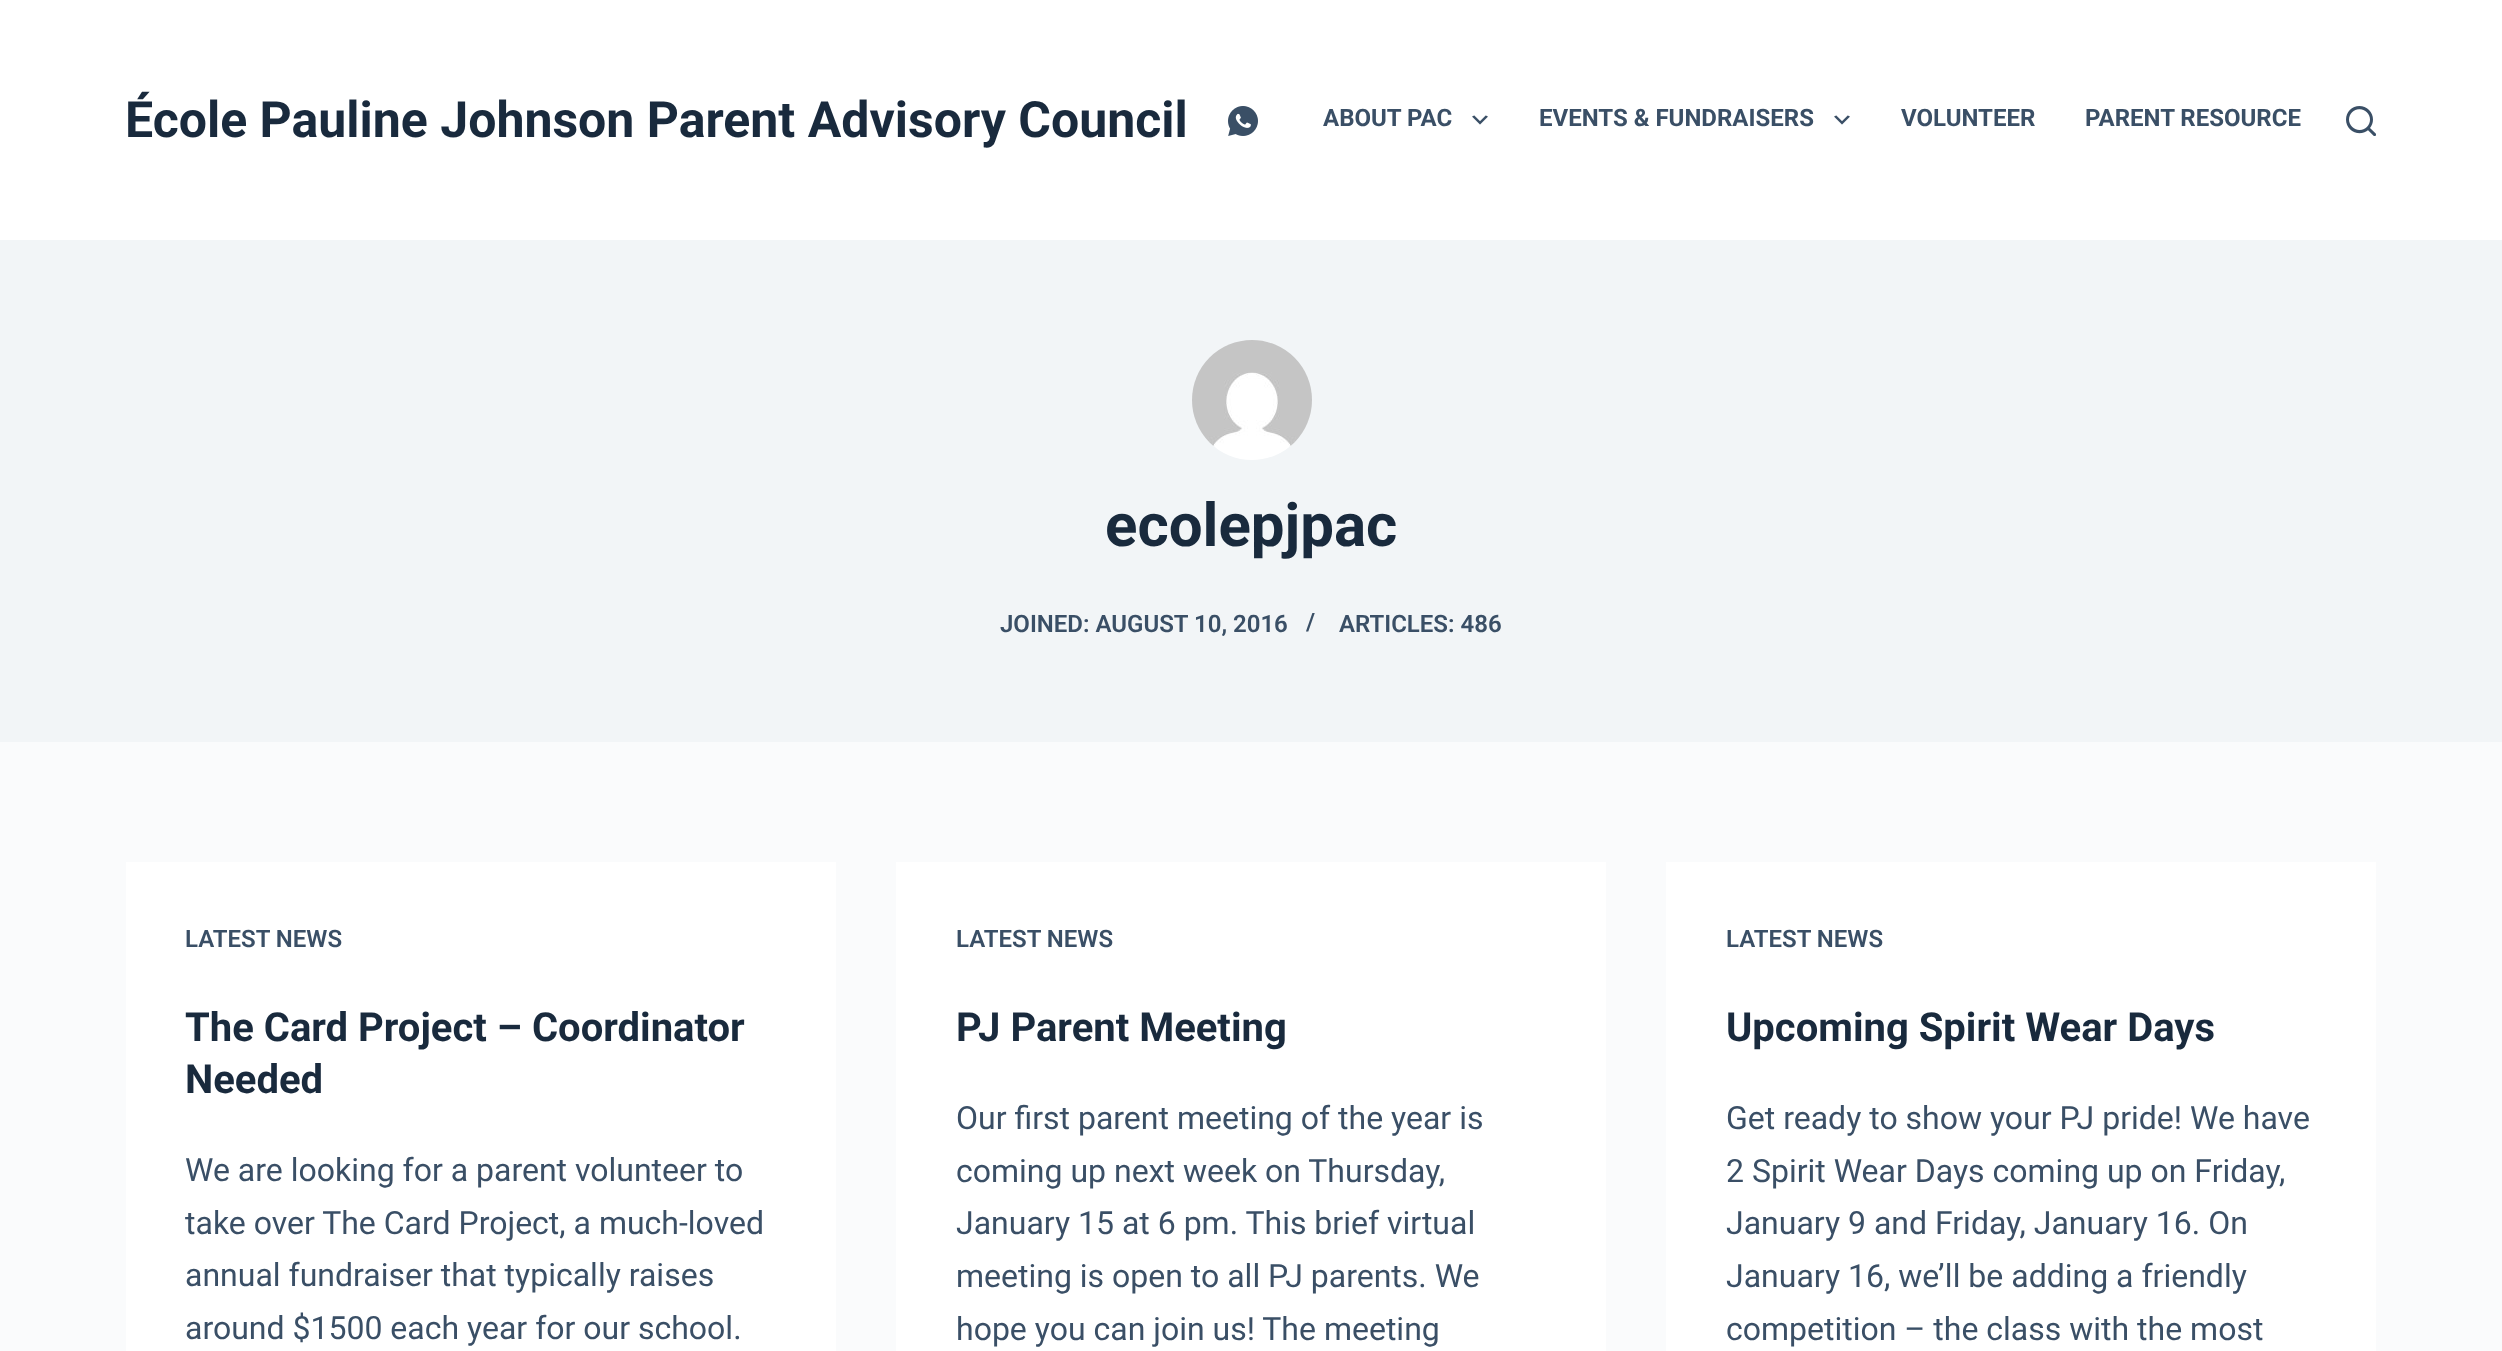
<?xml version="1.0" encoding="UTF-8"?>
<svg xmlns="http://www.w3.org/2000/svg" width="2502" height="1351">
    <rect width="100%" height="100%" fill="#FAFBFC"/>
    <rect x="0" y="0" width="2502" height="240" fill="#FFFFFF"/>
    <text x="125" y="137" font-family="Roboto" font-size="50" font-weight="700" fill="#192A3D">École Pauline Johnson Parent Advisory Council</text>
    <image x="1228" y="106" width="30" height="30" href="img_01.png"/>
    <text x="1323" y="126" font-family="Roboto" font-size="24" font-weight="700" fill="#3A4F66">ABOUT PAC</text>
    <image x="1472" y="115" width="16" height="10" href="img_02.png"/>
    <text x="1539" y="126" font-family="Roboto" font-size="24" font-weight="700" fill="#3A4F66">EVENTS &amp; FUNDRAISERS</text>
    <image x="1834" y="115" width="16" height="10" href="img_02.png"/>
    <text x="1901" y="126" font-family="Roboto" font-size="24" font-weight="700" fill="#3A4F66">VOLUNTEER</text>
    <text x="2085" y="126" font-family="Roboto" font-size="24" font-weight="700" fill="#3A4F66">PARENT RESOURCE</text>
    <image x="2346" y="106" width="30" height="30" href="img_03.png"/>
    <rect x="0" y="240" width="2502" height="502" fill="#F2F5F7"/>
    <image x="1192" y="340" width="120" height="120" href="img_04.png"/>
    <text x="1105" y="546" font-family="Roboto" font-size="60" font-weight="700" fill="#192A3D">ecolepjpac</text>
    <text x="1000" y="632" font-family="Roboto" font-size="24" font-weight="600" fill="#3A4F66">JOINED: AUGUST 10, 2016</text>
    <text x="1306" y="630" font-family="Roboto" font-size="24" font-weight="600" fill="#3A4F66">/</text>
    <text x="1339" y="632" font-family="Roboto" font-size="24" font-weight="600" fill="#3A4F66">ARTICLES: 486</text>
    <rect x="126" y="862" width="710" height="489" fill="#FFFFFF"/>
    <text x="185" y="947" font-family="Roboto" font-size="24" font-weight="600" fill="#3A4F66">LATEST NEWS</text>
    <text font-family="Roboto" font-size="40" font-weight="700" fill="#192A3D">
        <tspan x="185" y="1041">The Card Project – Coordinator</tspan>
        <tspan x="185" y="1093">Needed</tspan>
    </text>
    <text font-family="Roboto" font-size="32" fill="#3A4F66">
        <tspan x="185" y="1181">We are looking for a parent volunteer to</tspan>
        <tspan x="185" y="1234">take over The Card Project, a much-loved</tspan>
        <tspan x="185" y="1286">annual fundraiser that typically raises</tspan>
        <tspan x="185" y="1339">around $1500 each year for our school.</tspan>
    </text>
    <rect x="896" y="862" width="710" height="489" fill="#FFFFFF"/>
    <text x="956" y="947" font-family="Roboto" font-size="24" font-weight="600" fill="#3A4F66">LATEST NEWS</text>
    <text x="956" y="1041" font-family="Roboto" font-size="40" font-weight="700" fill="#192A3D">PJ Parent Meeting</text>
    <text font-family="Roboto" font-size="32" fill="#3A4F66">
        <tspan x="956" y="1129">Our first parent meeting of the year is</tspan>
        <tspan x="956" y="1182">coming up next week on Thursday,</tspan>
        <tspan x="956" y="1234">January 15 at 6 pm. This brief virtual</tspan>
        <tspan x="956" y="1287">meeting is open to all PJ parents. We</tspan>
        <tspan x="956" y="1340">hope you can join us! The meeting</tspan>
    </text>
    <rect x="1666" y="862" width="710" height="489" fill="#FFFFFF"/>
    <text x="1726" y="947" font-family="Roboto" font-size="24" font-weight="600" fill="#3A4F66">LATEST NEWS</text>
    <text x="1726" y="1041" font-family="Roboto" font-size="40" font-weight="700" fill="#192A3D">Upcoming Spirit Wear Days</text>
    <text font-family="Roboto" font-size="32" fill="#3A4F66">
        <tspan x="1726" y="1129">Get ready to show your PJ pride! We have</tspan>
        <tspan x="1726" y="1182">2 Spirit Wear Days coming up on Friday,</tspan>
        <tspan x="1726" y="1234">January 9 and Friday, January 16. On</tspan>
        <tspan x="1726" y="1287">January 16, we’ll be adding a friendly</tspan>
        <tspan x="1726" y="1340">competition – the class with the most</tspan>
    </text>
</svg>
